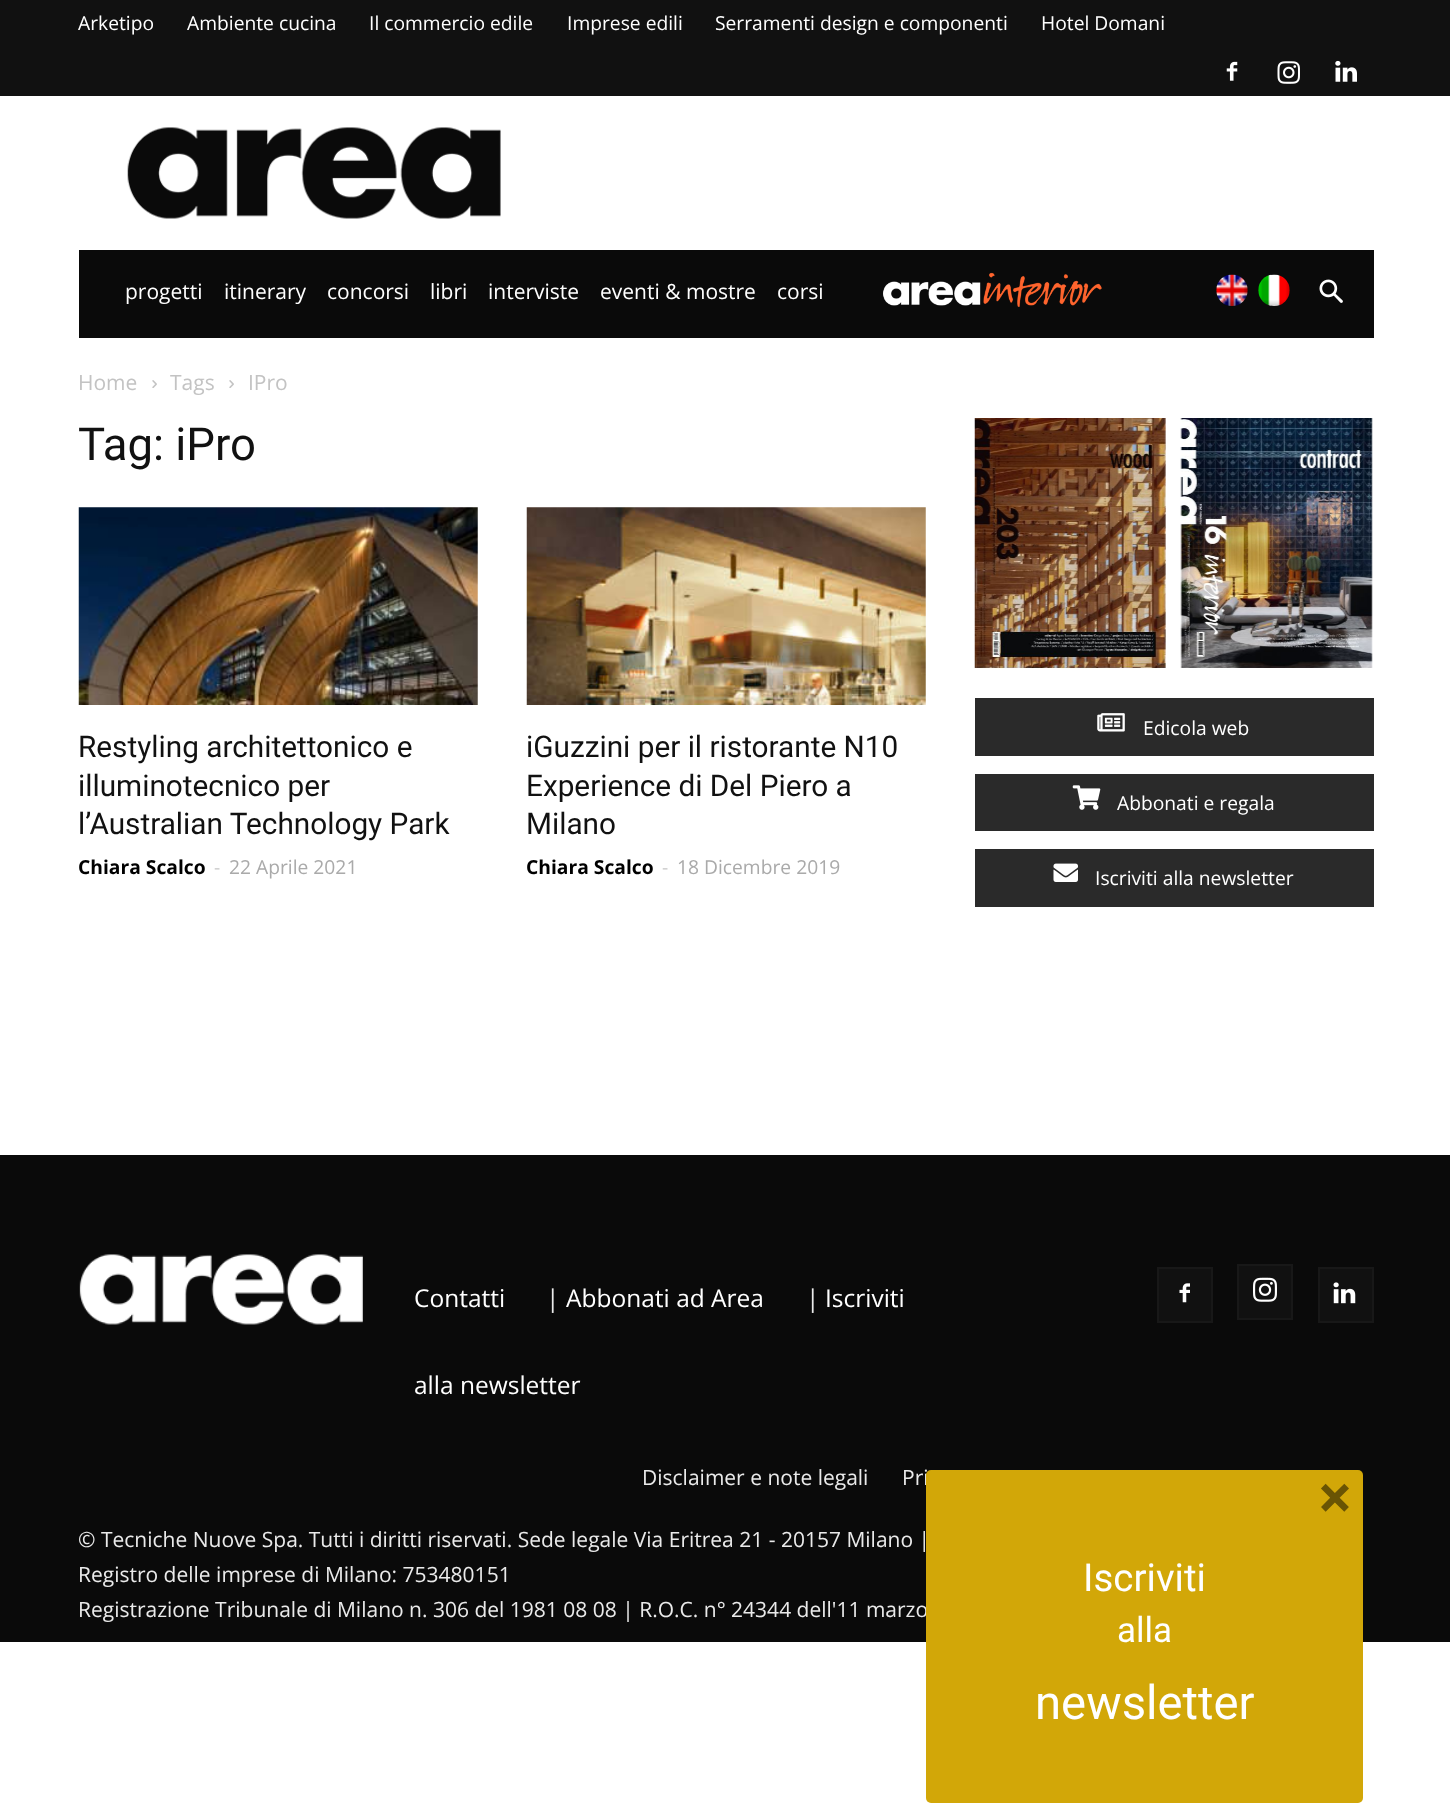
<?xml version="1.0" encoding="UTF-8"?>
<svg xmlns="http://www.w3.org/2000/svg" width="1450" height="1820">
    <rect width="100%" height="100%" fill="#FFFFFF"/>
    <rect x="0" y="0" width="1450" height="96" fill="#111111"/>
    <text x="78" y="30" font-family="Open Sans" font-size="19.25" fill="#FFFFFF">Arketipo</text>
    <text x="187" y="30" font-family="Open Sans" font-size="19.25" fill="#FFFFFF">Ambiente cucina</text>
    <text x="369" y="30" font-family="Open Sans" font-size="19.25" fill="#FFFFFF">Il commercio edile</text>
    <text x="567" y="30" font-family="Open Sans" font-size="19.25" fill="#FFFFFF">Imprese edili</text>
    <text x="715" y="30" font-family="Open Sans" font-size="19.25" fill="#FFFFFF">Serramenti design e componenti</text>
    <text x="1041" y="30" font-family="Open Sans" font-size="19.25" fill="#FFFFFF">Hotel Domani</text>
    <image x="1226" y="61" width="12" height="20" href="img_01.png"/>
    <image x="1277" y="61" width="23" height="23" href="img_02.png"/>
    <image x="1335" y="60" width="22" height="22" href="img_03.png"/>
    <image x="127" y="127" width="374" height="92" href="img_04.png"/>
    <rect x="79" y="250" width="1295" height="88" fill="#0A0A0A"/>
    <text x="125" y="299" font-family="Open Sans" font-size="21" fill="#FFFFFF">progetti</text>
    <text x="224" y="299" font-family="Open Sans" font-size="21" fill="#FFFFFF">itinerary</text>
    <text x="327" y="299" font-family="Open Sans" font-size="21" fill="#FFFFFF">concorsi</text>
    <text x="430" y="299" font-family="Open Sans" font-size="21" fill="#FFFFFF">libri</text>
    <text x="488" y="299" font-family="Open Sans" font-size="21" fill="#FFFFFF">interviste</text>
    <text x="600" y="299" font-family="Open Sans" font-size="21" fill="#FFFFFF">eventi &amp; mostre</text>
    <text x="777" y="299" font-family="Open Sans" font-size="21" fill="#FFFFFF">corsi</text>
    <image x="883" y="272" width="219" height="35" href="img_05.png"/>
    <image x="1216" y="274" width="32" height="32" href="img_06.png"/>
    <image x="1258" y="274" width="32" height="32" href="img_07.png"/>
    <image x="1319" y="279" width="24" height="24" href="img_08.png"/>
    <text x="78" y="390" font-family="Open Sans" font-size="21" fill="#C3C3C3">Home</text>
    <image x="152" y="380" width="5" height="8" href="img_09.png"/>
    <text x="170" y="390" font-family="Open Sans" font-size="21" fill="#C3C3C3">Tags</text>
    <image x="229" y="380" width="5" height="8" href="img_09.png"/>
    <text x="248" y="390" font-family="Open Sans" font-size="21" fill="#C3C3C3">IPro</text>
    <text x="78" y="460" font-family="Roboto" font-size="45.5" fill="#111111">Tag: iPro</text>
    <image x="78" y="507" width="400" height="198" href="img_10.png"/>
    <text font-family="Roboto" font-size="29.75" fill="#111111">
        <tspan x="78" y="757">Restyling architettonico e</tspan>
        <tspan x="78" y="796">illuminotecnico per</tspan>
        <tspan x="78" y="834">l’Australian Technology Park</tspan>
    </text>
    <text x="78" y="874" font-family="Open Sans" font-size="19.25" font-weight="700" fill="#000000">Chiara Scalco</text>
    <text x="214" y="874" font-family="Open Sans" font-size="19.25" fill="#CCCCCC">-</text>
    <text x="229" y="874" font-family="Open Sans" font-size="19.25" fill="#AAAAAA">22 Aprile 2021</text>
    <image x="526" y="507" width="400" height="198" href="img_11.png"/>
    <text font-family="Roboto" font-size="29.75" fill="#111111">
        <tspan x="526" y="757">iGuzzini per il ristorante N10</tspan>
        <tspan x="526" y="796">Experience di Del Piero a</tspan>
        <tspan x="526" y="834">Milano</tspan>
    </text>
    <text x="526" y="874" font-family="Open Sans" font-size="19.25" font-weight="700" fill="#000000">Chiara Scalco</text>
    <text x="662" y="874" font-family="Open Sans" font-size="19.25" fill="#CCCCCC">-</text>
    <text x="677" y="874" font-family="Open Sans" font-size="19.25" fill="#AAAAAA">18 Dicembre 2019</text>
    <image x="974" y="418" width="192" height="251" href="img_12.png"/>
    <image x="1180" y="418" width="193" height="250" href="img_13.png"/>
    <rect x="975" y="698" width="399" height="58" fill="#2A2A2A"/>
    <image x="1097" y="713" width="28" height="19" href="img_14.png"/>
    <text x="1143" y="735" font-family="Open Sans" font-size="19.25" fill="#FFFFFF">Edicola web</text>
    <rect x="975" y="774" width="399" height="57" fill="#2A2A2A"/>
    <image x="1072" y="785" width="29" height="25" href="img_15.png"/>
    <text x="1117" y="810" font-family="Open Sans" font-size="19.25" fill="#FFFFFF">Abbonati e regala</text>
    <rect x="975" y="849" width="399" height="58" fill="#2A2A2A"/>
    <image x="1053" y="863" width="25" height="19" href="img_16.png"/>
    <text x="1095" y="885" font-family="Open Sans" font-size="19.25" fill="#FFFFFF">Iscriviti alla newsletter</text>
    <rect x="0" y="1155" width="1450" height="487" fill="#0A0A0A"/>
    <image x="79" y="1254" width="284" height="71" href="img_17.png"/>
    <text x="414" y="1307" font-family="Open Sans" font-size="24.5" fill="#FFFFFF">Contatti</text>
    <text x="546" y="1307" font-family="Open Sans" font-size="24.5" fill="#EAEAEA">|</text>
    <text x="566" y="1307" font-family="Open Sans" font-size="24.5" fill="#FFFFFF">Abbonati ad Area</text>
    <text x="806" y="1307" font-family="Open Sans" font-size="24.5" fill="#EAEAEA">|</text>
    <text x="825" y="1307" font-family="Open Sans" font-size="24.5" fill="#FFFFFF">Iscriviti</text>
    <text x="414" y="1394" font-family="Open Sans" font-size="24.5" fill="#FFFFFF">alla newsletter</text>
    <rect x="1159" y="1269" width="52" height="52" fill="#111111"/>
    <image x="1179" y="1283" width="11" height="20" href="img_18.png"/>
    <rect x="1158" y="1268" width="54" height="54" fill="none" stroke="#181818" stroke-width="2"/>
    <rect x="1239" y="1266" width="52" height="52" fill="#111111"/>
    <image x="1253" y="1277" width="24" height="25" href="img_19.png"/>
    <rect x="1238" y="1265" width="54" height="54" fill="none" stroke="#181818" stroke-width="2"/>
    <rect x="1320" y="1269" width="52" height="52" fill="#111111"/>
    <image x="1333" y="1282" width="23" height="22" href="img_20.png"/>
    <rect x="1319" y="1268" width="54" height="54" fill="none" stroke="#181818" stroke-width="2"/>
    <text x="642" y="1485" font-family="Open Sans" font-size="21" fill="#EAEAEA">Disclaimer e note legali</text>
    <text x="902" y="1485" font-family="Open Sans" font-size="21" fill="#EAEAEA">Pri</text>
    <text font-family="Open Sans" font-size="21" fill="#EAEAEA">
        <tspan x="78" y="1547">© Tecniche Nuove Spa. Tutti i diritti riservati. Sede legale Via Eritrea 21 - 20157 Milano |</tspan>
        <tspan x="78" y="1582">Registro delle imprese di Milano: 753480151</tspan>
        <tspan x="78" y="1617">Registrazione Tribunale di Milano n. 306 del 1981 08 08 | R.O.C. n° 24344 dell'11 marzo</tspan>
    </text>
    <rect x="926" y="1470" width="437" height="333" rx="5" fill="#D2A708"/>
    <text x="1317" y="1520" font-family="Open Sans" font-size="63" font-weight="700" fill="#695404">×</text>
    <text x="1083" y="1591" font-family="Roboto" font-size="38.5" fill="#FFFFFF">Iscriviti</text>
    <text x="1117" y="1642" font-family="Roboto" font-size="35" fill="#FFFFFF">alla</text>
    <text x="1035" y="1719" font-family="Roboto" font-size="47.25" fill="#FFFFFF">newsletter</text>
</svg>
